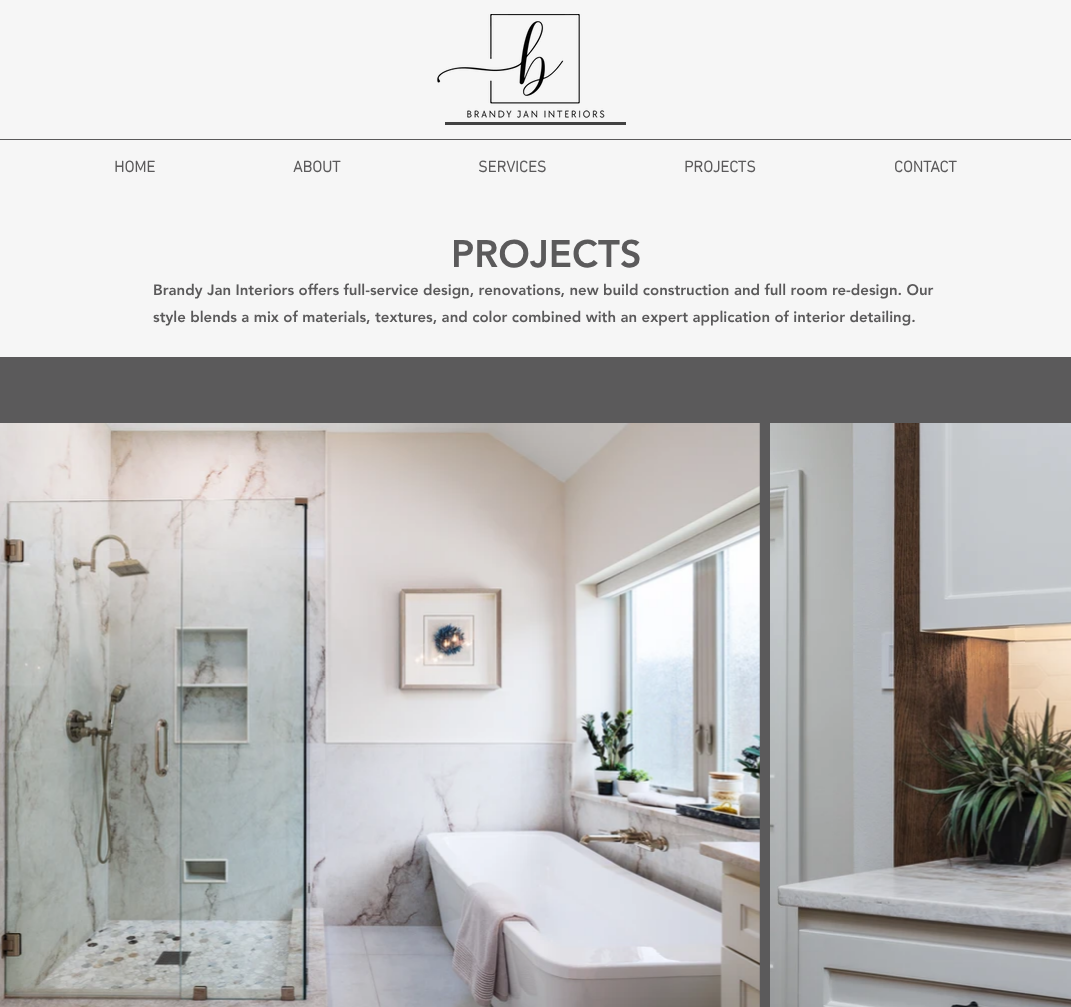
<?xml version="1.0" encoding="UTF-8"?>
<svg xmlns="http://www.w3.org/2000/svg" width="1071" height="1007">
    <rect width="100%" height="100%" fill="#F6F6F6"/>
    <image x="437" y="14" width="168" height="104" href="img_01.png"/>
    <rect x="445" y="122" width="181" height="3" fill="#424242"/>
    <rect x="0" y="139" width="1071" height="1" fill="#5B5A5B"/>
    <text x="114" y="172" font-family="'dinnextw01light'" font-size="16" font-weight="700" fill="#5B5A5B">HOME</text>
    <text x="293" y="172" font-family="'dinnextw01light'" font-size="16" font-weight="700" fill="#5B5A5B">ABOUT</text>
    <text x="478" y="172" font-family="'dinnextw01light'" font-size="16" font-weight="700" fill="#5B5A5B">SERVICES</text>
    <text x="684" y="172" font-family="'dinnextw01light'" font-size="16" font-weight="700" fill="#5B5A5B">PROJECTS</text>
    <text x="894" y="172" font-family="'dinnextw01light'" font-size="16" font-weight="700" fill="#5B5A5B">CONTACT</text>
    <text x="451" y="267" font-family="'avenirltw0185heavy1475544'" font-size="38" font-weight="900" fill="#5B5A5B">PROJECTS</text>
    <text font-family="'avenirltw0185heavy1475544'" font-size="15" font-weight="900" fill="#5B5A5B">
        <tspan x="153" y="295">Brandy Jan Interiors offers full-service design, renovations, new build construction and full room re-design. Our</tspan>
        <tspan x="153" y="322">style blends a mix of materials, textures, and color combined with an expert application of interior detailing.</tspan>
    </text>
    <rect x="0" y="357" width="1071" height="650" fill="#5B5A5B"/>
    <image x="0" y="423" width="760" height="584" href="img_02.png"/>
    <image x="770" y="423" width="301" height="584" href="img_03.png"/>
</svg>
